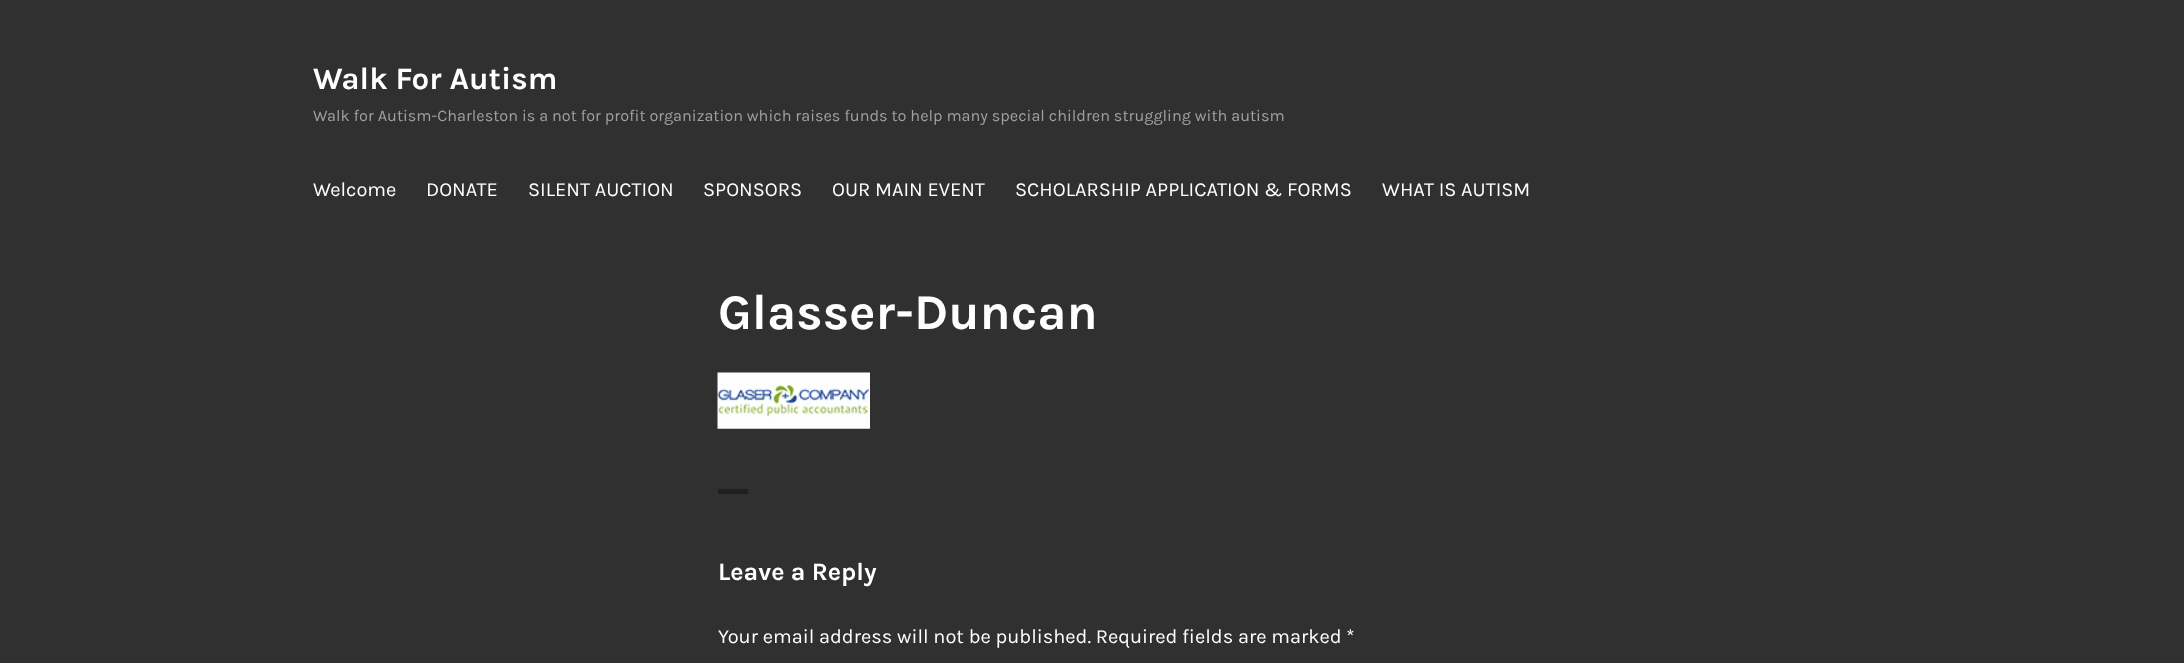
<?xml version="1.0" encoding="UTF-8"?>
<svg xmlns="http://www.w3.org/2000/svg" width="2184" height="663">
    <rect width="100%" height="100%" fill="#303030"/>
    <text x="313" y="89" font-family="Karla" font-size="31.25" font-weight="700" fill="#FFFFFF">Walk For Autism</text>
    <text x="313" y="121" font-family="Karla" font-size="16.25" fill="#A0A0A0">Walk for Autism-Charleston is a not for profit organization which raises funds to help many special children struggling with autism</text>
    <text x="313" y="196" font-family="Karla" font-size="20" fill="#FFFFFF">Welcome</text>
    <text x="426" y="196" font-family="Karla" font-size="20" fill="#FFFFFF">DONATE</text>
    <text x="528" y="196" font-family="Karla" font-size="20" fill="#FFFFFF">SILENT AUCTION</text>
    <text x="703" y="196" font-family="Karla" font-size="20" fill="#FFFFFF">SPONSORS</text>
    <text x="832" y="196" font-family="Karla" font-size="20" fill="#FFFFFF">OUR MAIN EVENT</text>
    <text x="1015" y="196" font-family="Karla" font-size="20" fill="#FFFFFF">SCHOLARSHIP APPLICATION &amp; FORMS</text>
    <text x="1382" y="196" font-family="Karla" font-size="20" fill="#FFFFFF">WHAT IS AUTISM</text>
    <text x="718" y="329" font-family="Karla" font-size="50" font-weight="700" fill="#FFFFFF">Glasser-Duncan</text>
    <image x="717" y="372" width="153" height="57" href="img_01.png"/>
    <rect x="718" y="489" width="30" height="5" fill="#202020"/>
    <text x="718" y="580" font-family="Karla" font-size="25" font-weight="700" fill="#FFFFFF">Leave a Reply</text>
    <text x="718" y="643" font-family="Karla" font-size="20" fill="#FFFFFF">Your email address will not be published. Required fields are marked *</text>
</svg>
